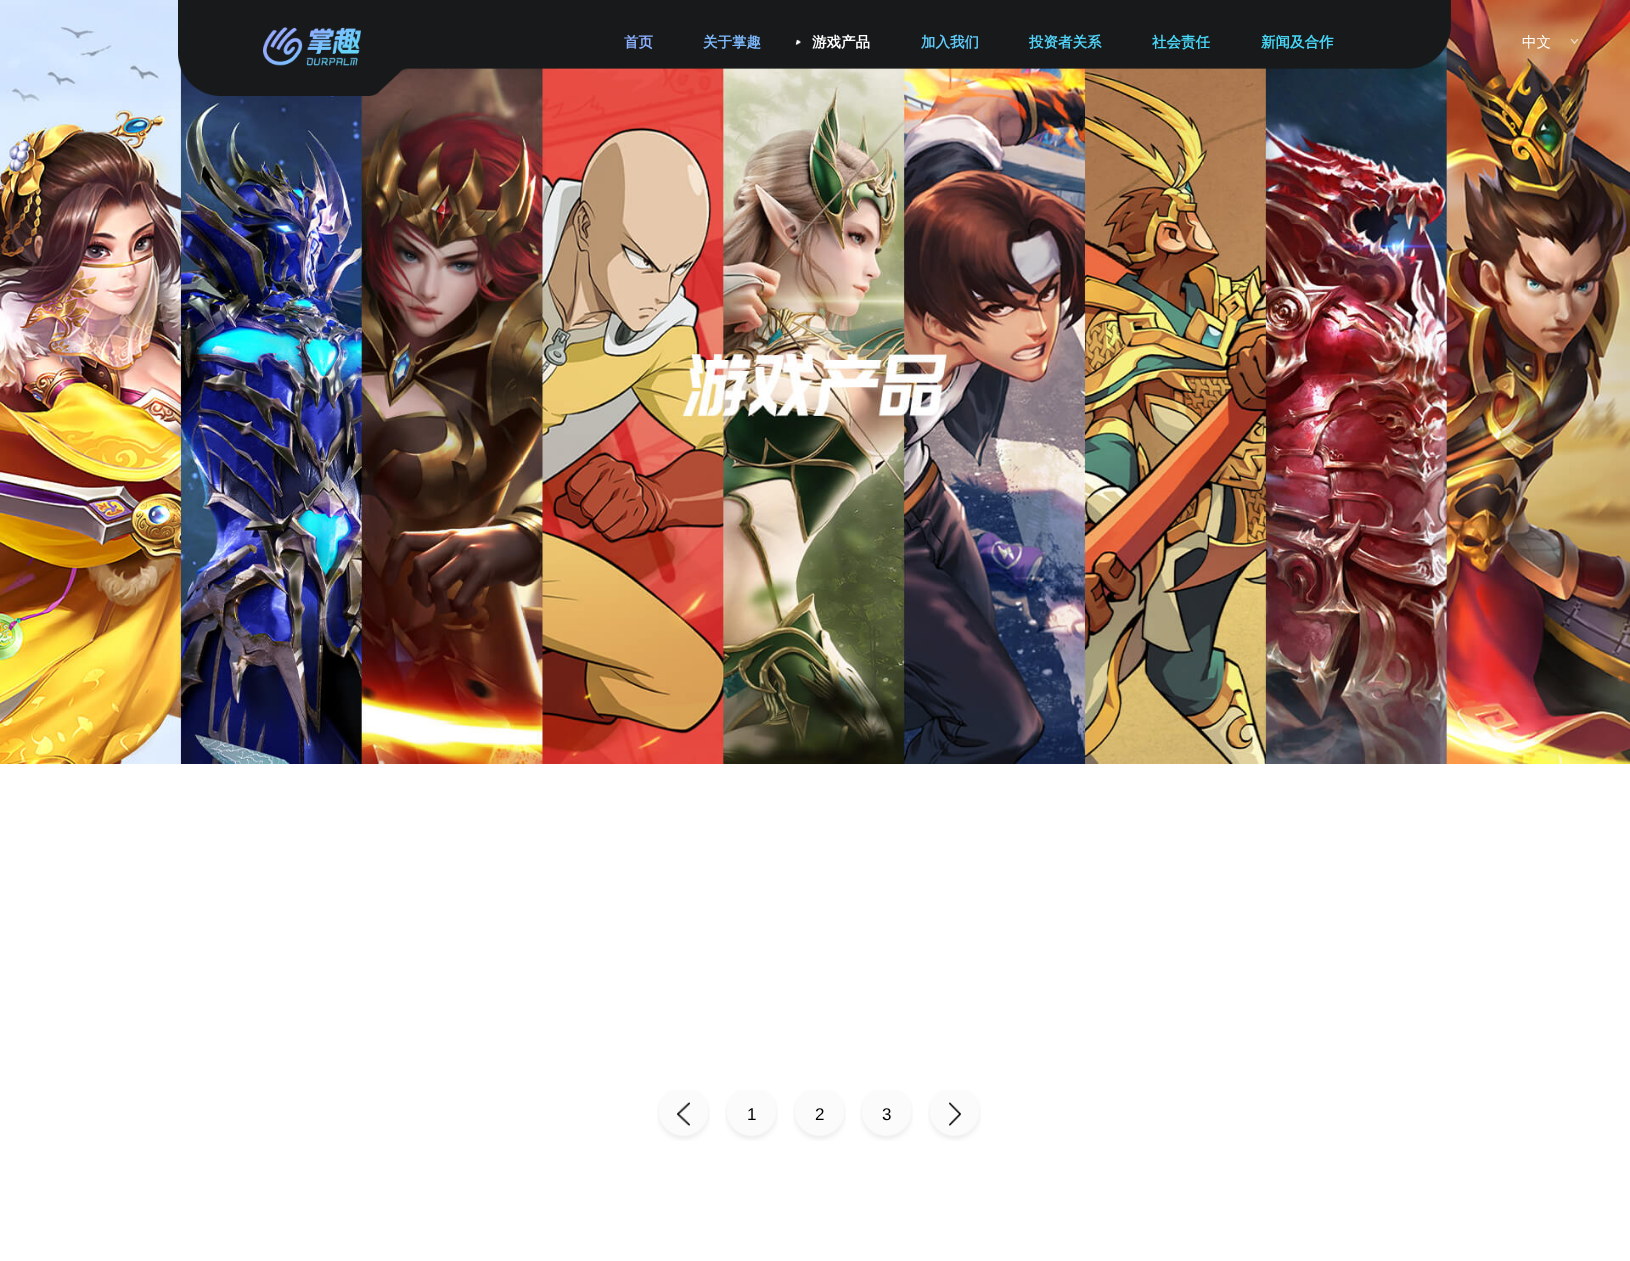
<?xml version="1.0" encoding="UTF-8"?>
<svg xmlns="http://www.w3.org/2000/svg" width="1630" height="1261">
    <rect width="100%" height="100%" fill="#FFFFFF"/>
    <image x="0" y="0" width="1630" height="764" href="img_01.png"/>
    <image x="178" y="0" width="1273" height="96" href="img_02.png"/>
    <image x="263" y="27" width="98" height="39" href="img_03.png"/>
    <text x="624" y="47" font-family="WenQuanYi Zen Hei" font-size="14.5" font-weight="700" fill="#8CB0FE">首页</text>
    <text x="703" y="47" font-family="WenQuanYi Zen Hei" font-size="14.5" font-weight="700" fill="#7DB8FA">关于掌趣</text>
    <image x="795" y="39" width="6" height="6" href="img_04.png"/>
    <text x="812" y="47" font-family="WenQuanYi Zen Hei" font-size="14.5" font-weight="700" fill="#FFFFFF">游戏产品</text>
    <text x="921" y="47" font-family="WenQuanYi Zen Hei" font-size="14.5" font-weight="700" fill="#5FCAF8">加入我们</text>
    <text x="1029" y="47" font-family="WenQuanYi Zen Hei" font-size="14.5" font-weight="700" fill="#50D2F6">投资者关系</text>
    <text x="1152" y="47" font-family="WenQuanYi Zen Hei" font-size="14.5" font-weight="700" fill="#47D6F6">社会责任</text>
    <text x="1261" y="47" font-family="WenQuanYi Zen Hei" font-size="14.5" font-weight="700" fill="#47D6F6">新闻及合作</text>
    <text x="1522" y="47" font-family="WenQuanYi Zen Hei" font-size="14.5" font-weight="500" fill="#FFFFFF">中文</text>
    <image x="1570" y="39" width="9" height="5" href="img_05.png"/>
    <image x="657" y="1090" width="53" height="51" href="img_06.png"/>
    <image x="677" y="1102" width="13" height="24" href="img_07.png"/>
    <image x="725" y="1090" width="53" height="51" href="img_06.png"/>
    <text x="747" y="1120" font-family="Liberation Sans" font-size="17" fill="#000000">1</text>
    <image x="793" y="1090" width="53" height="51" href="img_06.png"/>
    <text x="815" y="1120" font-family="Liberation Sans" font-size="17" fill="#000000">2</text>
    <image x="860" y="1090" width="53" height="51" href="img_08.png"/>
    <text x="882" y="1120" font-family="Liberation Sans" font-size="17" fill="#000000">3</text>
    <image x="928" y="1090" width="53" height="51" href="img_08.png"/>
    <image x="949" y="1102" width="12" height="24" href="img_09.png"/>
</svg>
